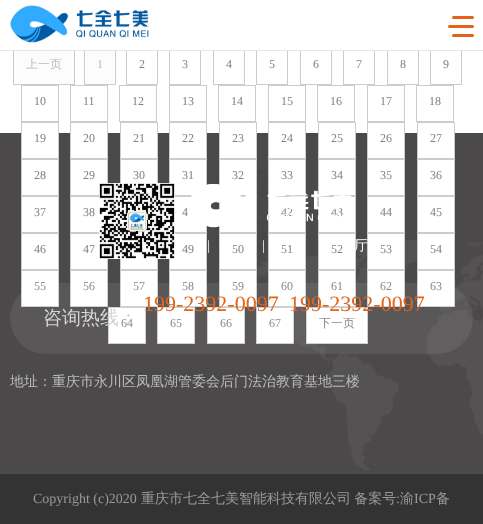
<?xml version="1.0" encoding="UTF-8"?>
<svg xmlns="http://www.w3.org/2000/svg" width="483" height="524">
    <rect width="100%" height="100%" fill="#FFFFFF"/>
    <rect x="14" y="51" width="60" height="33" fill="#FCFCFC"/>
    <rect x="13.5" y="48.5" width="61" height="36" fill="none" stroke="#CCCCCC"/>
    <rect x="85" y="51" width="30" height="33" fill="#FCFCFC"/>
    <rect x="84.5" y="48.5" width="31" height="36" fill="none" stroke="#CCCCCC"/>
    <rect x="126.5" y="48.5" width="31" height="36" fill="none" stroke="#CCCCCC"/>
    <rect x="169.5" y="48.5" width="31" height="36" fill="none" stroke="#CCCCCC"/>
    <rect x="213.5" y="48.5" width="31" height="36" fill="none" stroke="#CCCCCC"/>
    <rect x="256.5" y="48.5" width="31" height="36" fill="none" stroke="#CCCCCC"/>
    <rect x="300.5" y="48.5" width="31" height="36" fill="none" stroke="#CCCCCC"/>
    <rect x="343.5" y="48.5" width="31" height="36" fill="none" stroke="#CCCCCC"/>
    <rect x="387.5" y="48.5" width="31" height="36" fill="none" stroke="#CCCCCC"/>
    <rect x="430.5" y="48.5" width="31" height="36" fill="none" stroke="#CCCCCC"/>
    <rect x="13" y="48" width="449" height="2" fill="#FFFFFF"/>
    <rect x="0" y="50" width="483" height="1" fill="#E6E6E6"/>
    <image x="10" y="5" width="139" height="38" href="img_01.png"/>
    <rect x="452" y="16" width="22" height="3" rx="1.5" fill="#E36419"/>
    <rect x="448" y="25" width="26" height="3" rx="1.5" fill="#E36419"/>
    <rect x="452" y="34" width="22" height="3" rx="1.5" fill="#E36419"/>
    <text x="26" y="68" font-family="WenQuanYi Zen Hei" font-size="12" font-weight="500" fill="#BBBBBB">上一页</text>
    <text x="97" y="68" font-family="Liberation Serif" font-size="12" fill="#BBBBBB">1</text>
    <text x="139" y="68" font-family="Liberation Serif" font-size="12" fill="#808080">2</text>
    <text x="182" y="68" font-family="Liberation Serif" font-size="12" fill="#808080">3</text>
    <text x="226" y="68" font-family="Liberation Serif" font-size="12" fill="#808080">4</text>
    <text x="269" y="68" font-family="Liberation Serif" font-size="12" fill="#808080">5</text>
    <text x="313" y="68" font-family="Liberation Serif" font-size="12" fill="#808080">6</text>
    <text x="356" y="68" font-family="Liberation Serif" font-size="12" fill="#808080">7</text>
    <text x="400" y="68" font-family="Liberation Serif" font-size="12" fill="#808080">8</text>
    <text x="443" y="68" font-family="Liberation Serif" font-size="12" fill="#808080">9</text>
    <rect x="21.5" y="85.5" width="37" height="36" fill="none" stroke="#CCCCCC"/>
    <text x="34" y="105" font-family="Liberation Serif" font-size="12" fill="#808080">10</text>
    <rect x="70.5" y="85.5" width="37" height="36" fill="none" stroke="#CCCCCC"/>
    <text x="83" y="105" font-family="Liberation Serif" font-size="12" fill="#808080">11</text>
    <rect x="119.5" y="85.5" width="37" height="36" fill="none" stroke="#CCCCCC"/>
    <text x="132" y="105" font-family="Liberation Serif" font-size="12" fill="#808080">12</text>
    <rect x="169.5" y="85.5" width="37" height="36" fill="none" stroke="#CCCCCC"/>
    <text x="182" y="105" font-family="Liberation Serif" font-size="12" fill="#808080">13</text>
    <rect x="218.5" y="85.5" width="37" height="36" fill="none" stroke="#CCCCCC"/>
    <text x="231" y="105" font-family="Liberation Serif" font-size="12" fill="#808080">14</text>
    <rect x="268.5" y="85.5" width="37" height="36" fill="none" stroke="#CCCCCC"/>
    <text x="281" y="105" font-family="Liberation Serif" font-size="12" fill="#808080">15</text>
    <rect x="317.5" y="85.5" width="37" height="36" fill="none" stroke="#CCCCCC"/>
    <text x="330" y="105" font-family="Liberation Serif" font-size="12" fill="#808080">16</text>
    <rect x="367.5" y="85.5" width="37" height="36" fill="none" stroke="#CCCCCC"/>
    <text x="380" y="105" font-family="Liberation Serif" font-size="12" fill="#808080">17</text>
    <rect x="416.5" y="85.5" width="37" height="36" fill="none" stroke="#CCCCCC"/>
    <text x="429" y="105" font-family="Liberation Serif" font-size="12" fill="#808080">18</text>
    <rect x="0" y="133" width="483" height="341" fill="#4B494A"/>
    <rect x="22" y="133" width="36" height="25" fill="#FFFFFF"/>
    <rect x="21.5" y="122.5" width="37" height="36" fill="none" stroke="#CCCCCC"/>
    <text x="34" y="142" font-family="Liberation Serif" font-size="12" fill="#808080">19</text>
    <rect x="71" y="133" width="36" height="25" fill="#FFFFFF"/>
    <rect x="70.5" y="122.5" width="37" height="36" fill="none" stroke="#CCCCCC"/>
    <text x="83" y="142" font-family="Liberation Serif" font-size="12" fill="#808080">20</text>
    <rect x="121" y="133" width="36" height="25" fill="#FFFFFF"/>
    <rect x="120.5" y="122.5" width="37" height="36" fill="none" stroke="#CCCCCC"/>
    <text x="133" y="142" font-family="Liberation Serif" font-size="12" fill="#808080">21</text>
    <rect x="170" y="133" width="36" height="25" fill="#FFFFFF"/>
    <rect x="169.5" y="122.5" width="37" height="36" fill="none" stroke="#CCCCCC"/>
    <text x="182" y="142" font-family="Liberation Serif" font-size="12" fill="#808080">22</text>
    <rect x="220" y="133" width="36" height="25" fill="#FFFFFF"/>
    <rect x="219.5" y="122.5" width="37" height="36" fill="none" stroke="#CCCCCC"/>
    <text x="232" y="142" font-family="Liberation Serif" font-size="12" fill="#808080">23</text>
    <rect x="269" y="133" width="36" height="25" fill="#FFFFFF"/>
    <rect x="268.5" y="122.5" width="37" height="36" fill="none" stroke="#CCCCCC"/>
    <text x="281" y="142" font-family="Liberation Serif" font-size="12" fill="#808080">24</text>
    <rect x="319" y="133" width="36" height="25" fill="#FFFFFF"/>
    <rect x="318.5" y="122.5" width="37" height="36" fill="none" stroke="#CCCCCC"/>
    <text x="331" y="142" font-family="Liberation Serif" font-size="12" fill="#808080">25</text>
    <rect x="368" y="133" width="36" height="25" fill="#FFFFFF"/>
    <rect x="367.5" y="122.5" width="37" height="36" fill="none" stroke="#CCCCCC"/>
    <text x="380" y="142" font-family="Liberation Serif" font-size="12" fill="#808080">26</text>
    <rect x="418" y="133" width="36" height="25" fill="#FFFFFF"/>
    <rect x="417.5" y="122.5" width="37" height="36" fill="none" stroke="#CCCCCC"/>
    <text x="430" y="142" font-family="Liberation Serif" font-size="12" fill="#808080">27</text>
    <rect x="21.5" y="159.5" width="37" height="36" fill="#FFFFFF" stroke="#CCCCCC"/>
    <text x="34" y="179" font-family="Liberation Serif" font-size="12" fill="#808080">28</text>
    <rect x="70.5" y="159.5" width="37" height="36" fill="#FFFFFF" stroke="#CCCCCC"/>
    <text x="83" y="179" font-family="Liberation Serif" font-size="12" fill="#808080">29</text>
    <rect x="121" y="160" width="36" height="23" fill="#FFFFFF"/>
    <rect x="120.5" y="159.5" width="37" height="36" fill="none" stroke="#CCCCCC"/>
    <text x="133" y="179" font-family="Liberation Serif" font-size="12" fill="#808080">30</text>
    <rect x="169.5" y="159.5" width="37" height="36" fill="#FFFFFF" stroke="#CCCCCC"/>
    <text x="182" y="179" font-family="Liberation Serif" font-size="12" fill="#808080">31</text>
    <image x="216" y="170" width="267" height="300" href="img_02.png"/>
    <rect x="219.5" y="159.5" width="37" height="36" fill="#FFFFFF" stroke="#CCCCCC"/>
    <text x="232" y="179" font-family="Liberation Serif" font-size="12" fill="#808080">32</text>
    <rect x="268.5" y="159.5" width="37" height="36" fill="#FFFFFF" stroke="#CCCCCC"/>
    <text x="281" y="179" font-family="Liberation Serif" font-size="12" fill="#808080">33</text>
    <rect x="318.5" y="159.5" width="37" height="36" fill="#FFFFFF" stroke="#CCCCCC"/>
    <text x="331" y="179" font-family="Liberation Serif" font-size="12" fill="#808080">34</text>
    <rect x="367.5" y="159.5" width="37" height="36" fill="#FFFFFF" stroke="#CCCCCC"/>
    <text x="380" y="179" font-family="Liberation Serif" font-size="12" fill="#808080">35</text>
    <rect x="417.5" y="159.5" width="37" height="36" fill="#FFFFFF" stroke="#CCCCCC"/>
    <text x="430" y="179" font-family="Liberation Serif" font-size="12" fill="#808080">36</text>
    <rect x="21.5" y="196.5" width="37" height="36" fill="#FFFFFF" stroke="#CCCCCC"/>
    <text x="34" y="216" font-family="Liberation Serif" font-size="12" fill="#808080">37</text>
    <rect x="71" y="197" width="28" height="35" fill="#FFFFFF"/>
    <rect x="70.5" y="196.5" width="37" height="36" fill="none" stroke="#CCCCCC"/>
    <text x="83" y="216" font-family="Liberation Serif" font-size="12" fill="#808080">38</text>
    <rect x="175" y="197" width="31" height="35" fill="#FFFFFF"/>
    <rect x="169.5" y="196.5" width="37" height="36" fill="none" stroke="#CCCCCC"/>
    <text x="182" y="216" font-family="Liberation Serif" font-size="12" fill="#808080">4</text>
    <rect x="219.5" y="196.5" width="37" height="36" fill="#FFFFFF" stroke="#CCCCCC"/>
    <rect x="268.5" y="196.5" width="37" height="36" fill="#FFFFFF" stroke="#CCCCCC"/>
    <text x="281" y="216" font-family="Liberation Serif" font-size="12" fill="#808080">42</text>
    <rect x="318.5" y="196.5" width="37" height="36" fill="#FFFFFF" stroke="#CCCCCC"/>
    <text x="331" y="216" font-family="Liberation Serif" font-size="12" fill="#808080">43</text>
    <rect x="367.5" y="196.5" width="37" height="36" fill="#FFFFFF" stroke="#CCCCCC"/>
    <text x="380" y="216" font-family="Liberation Serif" font-size="12" fill="#808080">44</text>
    <rect x="417.5" y="196.5" width="37" height="36" fill="#FFFFFF" stroke="#CCCCCC"/>
    <text x="430" y="216" font-family="Liberation Serif" font-size="12" fill="#808080">45</text>
    <rect x="21.5" y="233.5" width="37" height="36" fill="#FFFFFF" stroke="#CCCCCC"/>
    <text x="34" y="253" font-family="Liberation Serif" font-size="12" fill="#808080">46</text>
    <rect x="70.5" y="233.5" width="37" height="36" fill="#FFFFFF" stroke="#CCCCCC"/>
    <text x="83" y="253" font-family="Liberation Serif" font-size="12" fill="#808080">47</text>
    <rect x="121" y="259" width="36" height="10" fill="#FFFFFF"/>
    <rect x="120.5" y="233.5" width="37" height="36" fill="none" stroke="#CCCCCC"/>
    <rect x="169.5" y="233.5" width="37" height="36" fill="#FFFFFF" stroke="#CCCCCC"/>
    <text x="182" y="253" font-family="Liberation Serif" font-size="12" fill="#808080">49</text>
    <rect x="219.5" y="233.5" width="37" height="36" fill="#FFFFFF" stroke="#CCCCCC"/>
    <text x="232" y="253" font-family="Liberation Serif" font-size="12" fill="#808080">50</text>
    <rect x="268.5" y="233.5" width="37" height="36" fill="#FFFFFF" stroke="#CCCCCC"/>
    <text x="281" y="253" font-family="Liberation Serif" font-size="12" fill="#808080">51</text>
    <rect x="318.5" y="233.5" width="37" height="36" fill="#FFFFFF" stroke="#CCCCCC"/>
    <text x="331" y="253" font-family="Liberation Serif" font-size="12" fill="#808080">52</text>
    <rect x="367.5" y="233.5" width="37" height="36" fill="#FFFFFF" stroke="#CCCCCC"/>
    <text x="380" y="253" font-family="Liberation Serif" font-size="12" fill="#808080">53</text>
    <rect x="417.5" y="233.5" width="37" height="36" fill="#FFFFFF" stroke="#CCCCCC"/>
    <text x="430" y="253" font-family="Liberation Serif" font-size="12" fill="#808080">54</text>
    <rect x="21.5" y="270.5" width="37" height="36" fill="#FFFFFF" stroke="#CCCCCC"/>
    <text x="34" y="290" font-family="Liberation Serif" font-size="12" fill="#808080">55</text>
    <rect x="70.5" y="270.5" width="37" height="36" fill="#FFFFFF" stroke="#CCCCCC"/>
    <text x="83" y="290" font-family="Liberation Serif" font-size="12" fill="#808080">56</text>
    <rect x="120.5" y="270.5" width="37" height="36" fill="#FFFFFF" stroke="#CCCCCC"/>
    <text x="133" y="290" font-family="Liberation Serif" font-size="12" fill="#808080">57</text>
    <rect x="169.5" y="270.5" width="37" height="36" fill="#FFFFFF" stroke="#CCCCCC"/>
    <text x="182" y="290" font-family="Liberation Serif" font-size="12" fill="#808080">58</text>
    <rect x="219.5" y="270.5" width="37" height="36" fill="#FFFFFF" stroke="#CCCCCC"/>
    <text x="232" y="290" font-family="Liberation Serif" font-size="12" fill="#808080">59</text>
    <rect x="268.5" y="270.5" width="37" height="36" fill="#FFFFFF" stroke="#CCCCCC"/>
    <text x="281" y="290" font-family="Liberation Serif" font-size="12" fill="#808080">60</text>
    <rect x="318.5" y="270.5" width="37" height="36" fill="#FFFFFF" stroke="#CCCCCC"/>
    <text x="331" y="290" font-family="Liberation Serif" font-size="12" fill="#808080">61</text>
    <rect x="367.5" y="270.5" width="37" height="36" fill="#FFFFFF" stroke="#CCCCCC"/>
    <text x="380" y="290" font-family="Liberation Serif" font-size="12" fill="#808080">62</text>
    <rect x="417.5" y="270.5" width="37" height="36" fill="#FFFFFF" stroke="#CCCCCC"/>
    <text x="430" y="290" font-family="Liberation Serif" font-size="12" fill="#808080">63</text>
    <rect x="108.5" y="307.5" width="37" height="36" fill="#FFFFFF" stroke="#CCCCCC"/>
    <text x="121" y="327" font-family="Liberation Serif" font-size="12" fill="#808080">64</text>
    <rect x="157.5" y="307.5" width="37" height="36" fill="#FFFFFF" stroke="#CCCCCC"/>
    <text x="170" y="327" font-family="Liberation Serif" font-size="12" fill="#808080">65</text>
    <rect x="207.5" y="307.5" width="37" height="36" fill="#FFFFFF" stroke="#CCCCCC"/>
    <text x="220" y="327" font-family="Liberation Serif" font-size="12" fill="#808080">66</text>
    <rect x="256.5" y="307.5" width="37" height="36" fill="#FFFFFF" stroke="#CCCCCC"/>
    <text x="269" y="327" font-family="Liberation Serif" font-size="12" fill="#808080">67</text>
    <rect x="306.5" y="307.5" width="61" height="36" fill="#FFFFFF" stroke="#CCCCCC"/>
    <text x="319" y="327" font-family="WenQuanYi Zen Hei" font-size="12" font-weight="500" fill="#808080">下一页</text>
    <image x="99" y="183" width="76" height="76" href="img_03.png"/>
    <image x="188" y="184" width="164" height="44" href="img_04.png"/>
    <text x="207" y="250" font-family="Liberation Serif" font-size="14" letter-spacing="1" fill="#FFFFFF">|</text>
    <text x="262" y="250" font-family="Liberation Serif" font-size="14" letter-spacing="1" fill="#FFFFFF">|</text>
    <text x="354" y="250" font-family="WenQuanYi Zen Hei" font-size="14" font-weight="500" letter-spacing="1" fill="#FFFFFF">厅</text>
    <rect x="10" y="283" width="463" height="71" rx="35.5" fill="#FAFAFA" fill-opacity="0.08"/>
    <text x="143" y="311" font-family="Liberation Serif" font-size="22" fill="#E36419">199-2392-0097</text>
    <text x="289" y="311" font-family="Liberation Serif" font-size="22" fill="#E36419">199-2392-0097</text>
    <text x="43" y="324" font-family="WenQuanYi Zen Hei" font-size="19" font-weight="500" fill="#D5D4D4">咨询热线：</text>
    <text x="10" y="386" font-family="WenQuanYi Zen Hei" font-size="14" font-weight="500" fill="#BBBBBB">地址：重庆市永川区凤凰湖管委会后门法治教育基地三楼</text>
    <rect x="0" y="474" width="483" height="50" fill="#333333"/>
    <text x="33" y="503" font-family="Liberation Serif" font-size="14" fill="#999999">Copyright (c)2020</text>
    <text x="141" y="503" word-spacing="-1" font-family="WenQuanYi Zen Hei" font-size="14" font-weight="500" fill="#999999">重庆市七全七美智能科技有限公司 备案号</text>
    <text x="396" y="503" font-family="Liberation Serif" font-size="14" fill="#999999">:</text>
    <text x="400" y="503" font-family="WenQuanYi Zen Hei" font-size="14" font-weight="500" fill="#999999">渝</text>
    <text x="414" y="503" font-family="Liberation Serif" font-size="14" fill="#999999">ICP</text>
    <text x="436" y="503" font-family="WenQuanYi Zen Hei" font-size="14" font-weight="500" fill="#999999">备</text>
</svg>
